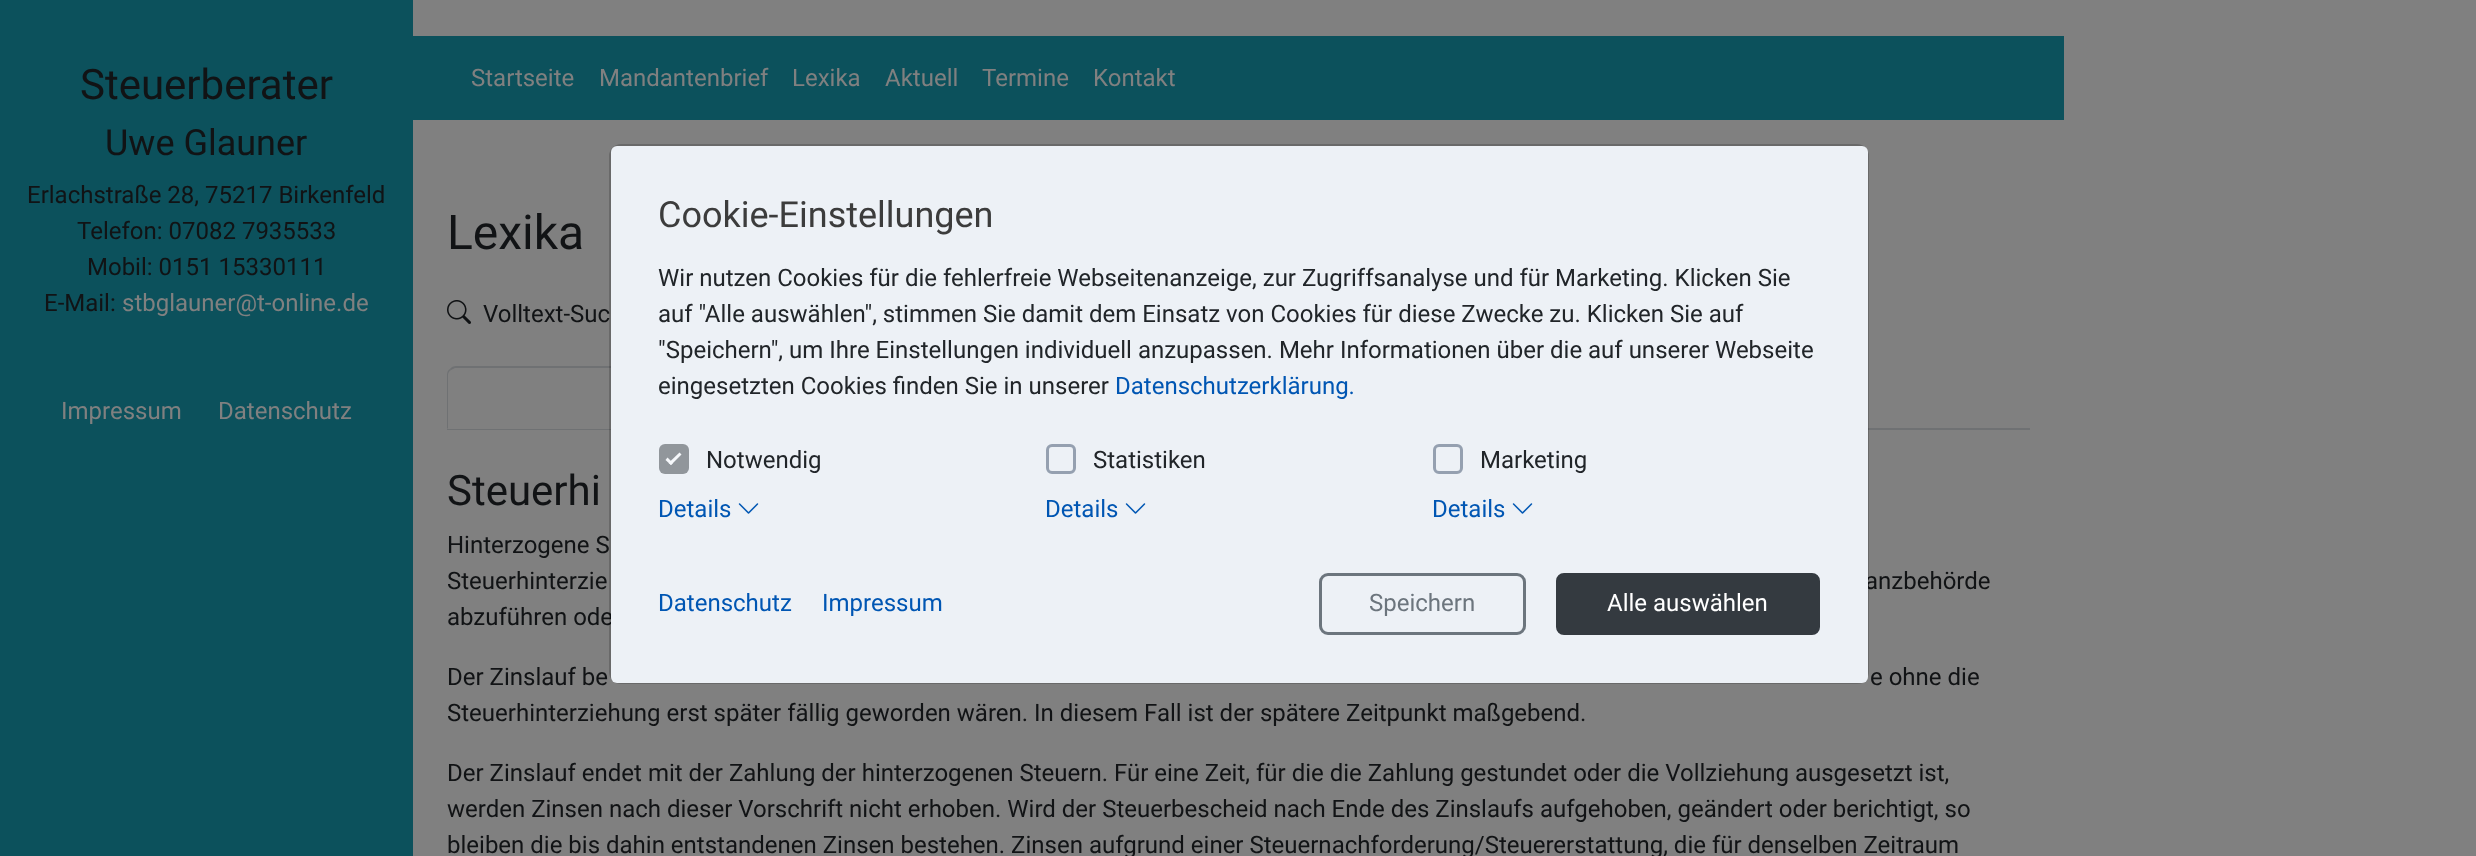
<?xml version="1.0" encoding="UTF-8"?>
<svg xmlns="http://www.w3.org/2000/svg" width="2476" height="856">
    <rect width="100%" height="100%" fill="#808080"/>
    <rect x="0" y="0" width="413" height="856" fill="#0C515C"/>
    <text x="80" y="99" font-family="Roboto" font-size="42" fill="#111315">Steuerberater</text>
    <text x="105" y="155" font-family="Roboto" font-size="36" fill="#111315">Uwe Glauner</text>
    <text x="27" y="203" font-family="Roboto" font-size="24" fill="#111315">Erlachstraße 28, 75217 Birkenfeld</text>
    <text x="77" y="239" font-family="Roboto" font-size="24" fill="#111315">Telefon: 07082 7935533</text>
    <text x="87" y="275" font-family="Roboto" font-size="24" fill="#111315">Mobil: 0151 15330111</text>
    <text x="44" y="311" font-family="Roboto" font-size="24" fill="#111315">E-Mail:</text>
    <text x="122" y="311" font-family="Roboto" font-size="24" fill="#808080">stbglauner@t-online.de</text>
    <text x="61" y="419" font-family="Roboto" font-size="24" fill="#808080">Impressum</text>
    <text x="218" y="419" font-family="Roboto" font-size="24" fill="#808080">Datenschutz</text>
    <rect x="413" y="36" width="1651" height="84" fill="#0C515C"/>
    <text x="471" y="86" font-family="Roboto" font-size="24" fill="#808080">Startseite</text>
    <text x="599" y="86" font-family="Roboto" font-size="24" fill="#808080">Mandantenbrief</text>
    <text x="792" y="86" font-family="Roboto" font-size="24" fill="#808080">Lexika</text>
    <text x="885" y="86" font-family="Roboto" font-size="24" fill="#808080">Aktuell</text>
    <text x="982" y="86" font-family="Roboto" font-size="24" fill="#808080">Termine</text>
    <text x="1093" y="86" font-family="Roboto" font-size="24" fill="#808080">Kontakt</text>
    <text x="447" y="249" font-family="Roboto" font-size="48" fill="#111315">Lexika</text>
    <image x="447" y="300" width="24" height="24" href="img_01.png"/>
    <text x="483" y="322" font-family="Roboto" font-size="24" fill="#111315">Volltext-Suc</text>
    <rect x="447" y="428" width="1583" height="2" fill="#6F7173"/>
    <path d="M 456 366 H 633 C 638 366 642 370 642 375 V 429 H 447 V 375 C 447 370 451 366 456 366 Z" fill="#808080"/>
    <path d="M 456 366 C 454 366 451 367 450 369 L 451 370 L 455 368 H 634 C 635 368 637 369 638 370 L 639 369 C 638 367 636 366 633 366 Z" fill="#6F7173"/>
    <path d="M 447 429 L 448 428 V 375 C 448 373 449 371 451 370 L 450 369 C 448 370 447 372 447 375 Z" fill="#6F7173"/>
    <text x="447" y="505" font-family="Roboto" font-size="42" fill="#111315">Steuerhi</text>
    <text font-family="Roboto" font-size="24" fill="#111315">
        <tspan x="447" y="553">Hinterzogene S</tspan>
        <tspan x="447" y="589">Steuerhinterzie</tspan>
    </text>
    <text x="1865" y="589" font-family="Roboto" font-size="24" fill="#111315">anzbehörde</text>
    <text x="447" y="625" font-family="Roboto" font-size="24" fill="#111315">abzuführen ode</text>
    <text x="447" y="685" font-family="Roboto" font-size="24" fill="#111315">Der Zinslauf be</text>
    <text x="1870" y="685" font-family="Roboto" font-size="24" fill="#111315">e ohne die</text>
    <text x="447" y="721" font-family="Roboto" font-size="24" fill="#111315">Steuerhinterziehung erst später fällig geworden wären. In diesem Fall ist der spätere Zeitpunkt maßgebend.</text>
    <text font-family="Roboto" font-size="24" fill="#111315">
        <tspan x="447" y="781">Der Zinslauf endet mit der Zahlung der hinterzogenen Steuern. Für eine Zeit, für die die Zahlung gestundet oder die Vollziehung ausgesetzt ist,</tspan>
        <tspan x="447" y="817">werden Zinsen nach dieser Vorschrift nicht erhoben. Wird der Steuerbescheid nach Ende des Zinslaufs aufgehoben, geändert oder berichtigt, so</tspan>
        <tspan x="447" y="853">bleiben die bis dahin entstandenen Zinsen bestehen. Zinsen aufgrund einer Steuernachforderung/Steuererstattung, die für denselben Zeitraum</tspan>
    </text>
    <rect x="610" y="145" width="1258" height="538" rx="11" fill="none" stroke="#000000" stroke-opacity="0.18" stroke-width="2"/>
    <rect x="611" y="146" width="1257" height="537" rx="6" fill="#EDF1F6"/>
    <text x="658" y="227" font-family="Roboto" font-size="36" fill="#3C3C3C">Cookie-Einstellungen</text>
    <text font-family="Roboto" font-size="24" fill="#212529">
        <tspan x="658" y="286">Wir nutzen Cookies für die fehlerfreie Webseitenanzeige, zur Zugriffsanalyse und für Marketing. Klicken Sie</tspan>
        <tspan x="658" y="322">auf "Alle auswählen", stimmen Sie damit dem Einsatz von Cookies für diese Zwecke zu. Klicken Sie auf</tspan>
        <tspan x="658" y="358">"Speichern", um Ihre Einstellungen individuell anzupassen. Mehr Informationen über die auf unserer Webseite</tspan>
        <tspan x="658" y="394">eingesetzten Cookies finden Sie in unserer</tspan>
    </text>
    <text x="1115" y="394" font-family="Roboto" font-size="24" fill="#0056B3">Datenschutzerklärung.</text>
    <rect x="659" y="444" width="30" height="30" rx="6" fill="#91969B"/>
    <path d="M 679.5 452.5 L 681.5 454.5 L 671 465 L 668.5 463 Z" fill="#F6F8FB"/>
    <path d="M 667.5 457.5 L 673 463 L 671 465 L 665.5 460 Z" fill="#F6F8FB"/>
    <text x="706" y="468" font-family="Roboto" font-size="24" fill="#212529">Notwendig</text>
    <rect x="1047.5" y="445.5" width="27" height="27" rx="4.5" fill="none" stroke="#95A0B0" stroke-width="3"/>
    <text x="1093" y="468" font-family="Roboto" font-size="24" fill="#212529">Statistiken</text>
    <rect x="1434.5" y="445.5" width="27" height="27" rx="4.5" fill="none" stroke="#95A0B0" stroke-width="3"/>
    <text x="1480" y="468" font-family="Roboto" font-size="24" fill="#212529">Marketing</text>
    <text x="658" y="517" font-family="Roboto" font-size="24" fill="#0056B3">Details</text>
    <image x="738" y="503" width="21" height="11" href="img_02.png"/>
    <text x="1045" y="517" font-family="Roboto" font-size="24" fill="#0056B3">Details</text>
    <image x="1125" y="503" width="21" height="11" href="img_02.png"/>
    <text x="1432" y="517" font-family="Roboto" font-size="24" fill="#0056B3">Details</text>
    <image x="1512" y="503" width="21" height="11" href="img_02.png"/>
    <text x="658" y="611" font-family="Roboto" font-size="24" fill="#0056B3">Datenschutz</text>
    <text x="822" y="611" font-family="Roboto" font-size="24" fill="#0056B3">Impressum</text>
    <rect x="1320.5" y="574.5" width="204" height="59" rx="7.5" fill="none" stroke="#6C757D" stroke-width="3"/>
    <text x="1369" y="611" font-family="Roboto" font-size="24" fill="#6C757D">Speichern</text>
    <rect x="1557.5" y="574.5" width="261" height="59" rx="6.5" fill="#343A40" stroke="#343A40" stroke-width="3"/>
    <text x="1607" y="611" font-family="Roboto" font-size="24" fill="#FFFFFF">Alle auswählen</text>
</svg>
